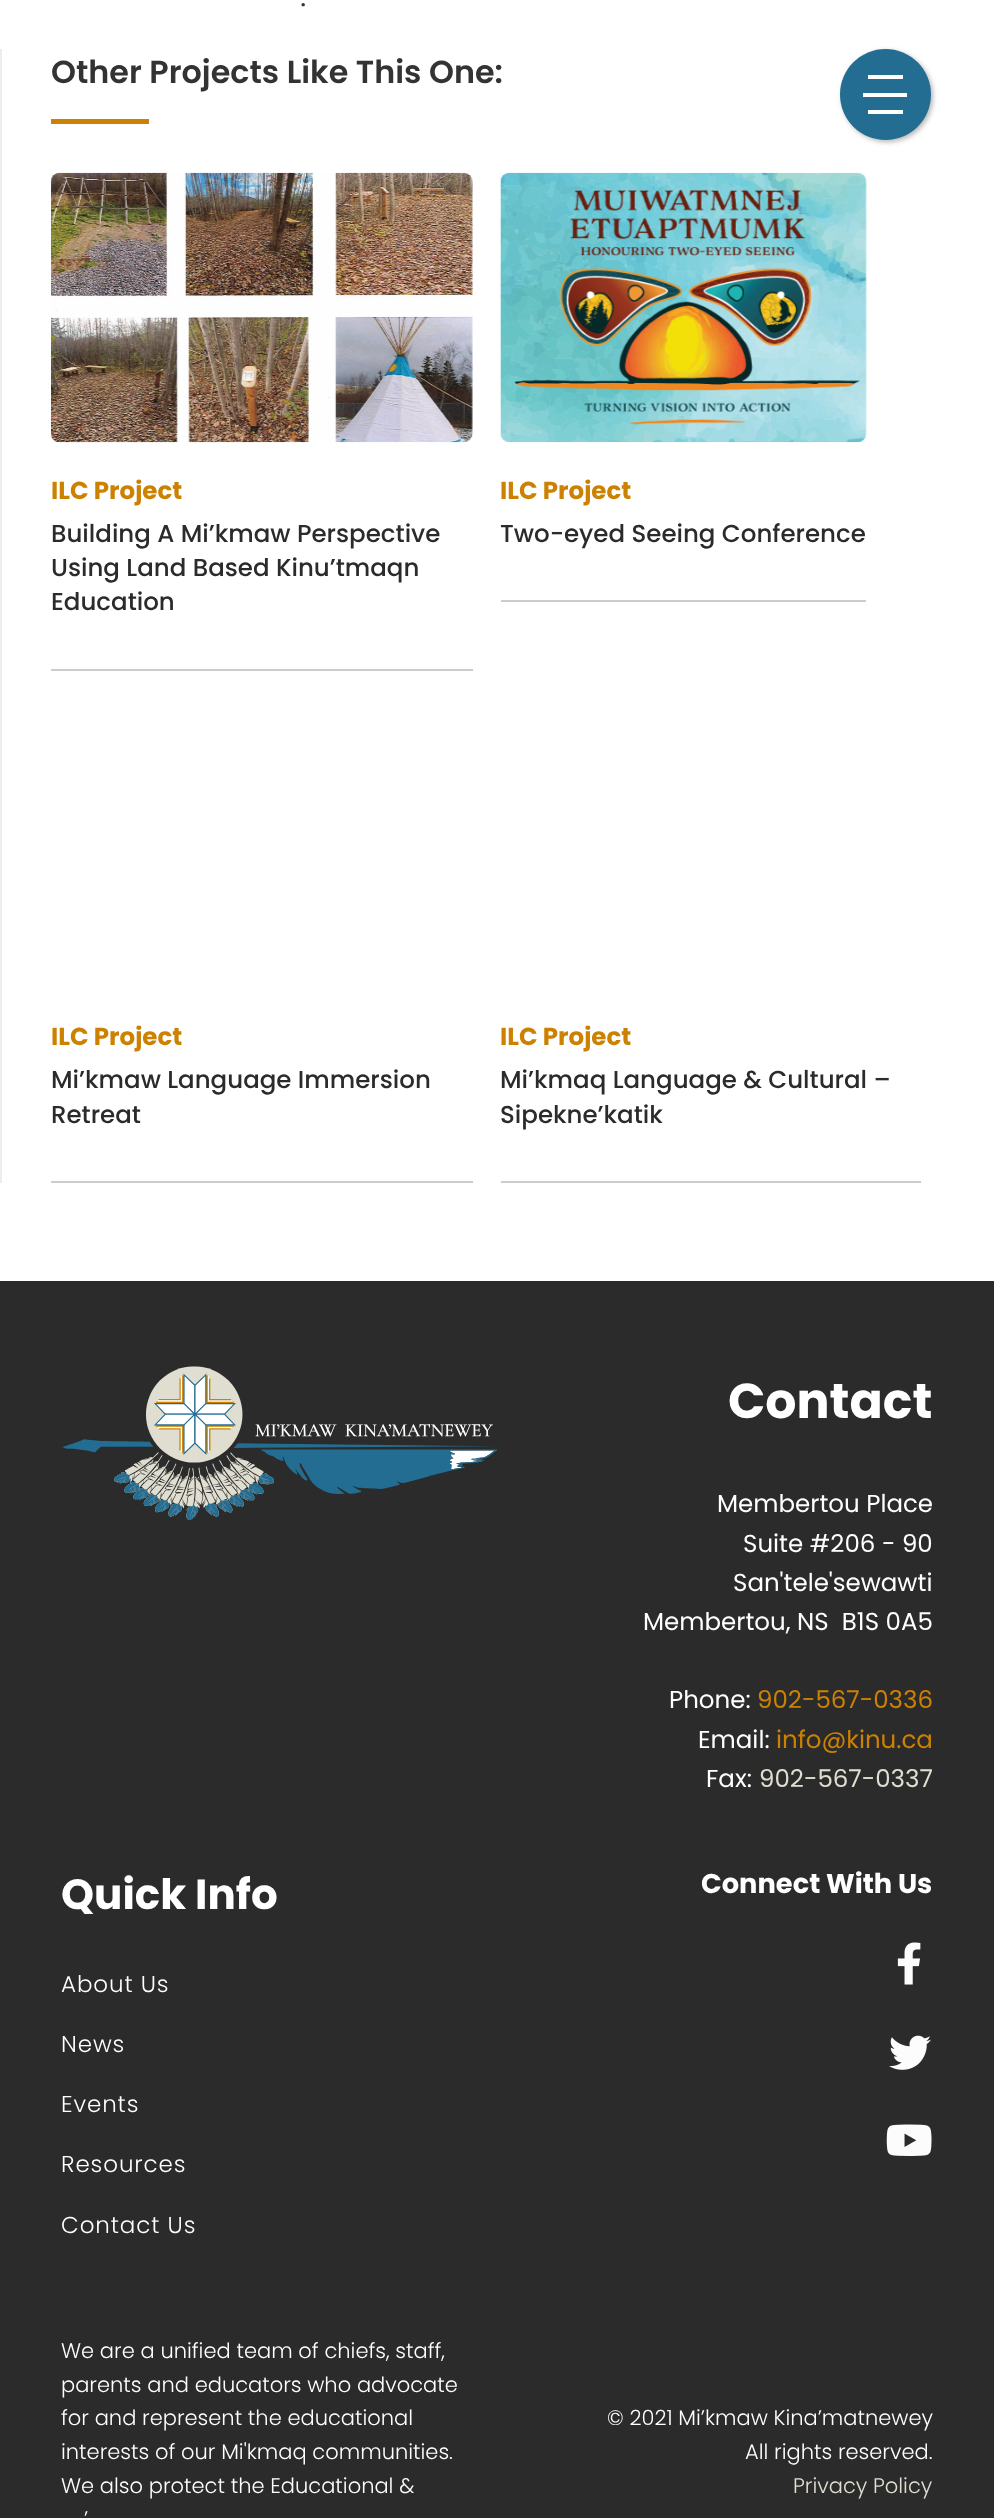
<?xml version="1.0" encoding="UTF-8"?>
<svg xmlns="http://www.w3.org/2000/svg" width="994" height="2518">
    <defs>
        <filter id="blur1" x="-50%" y="-200%" width="200%" height="500%"><feGaussianBlur stdDeviation="2.5"/></filter>
    </defs>
    <rect width="100%" height="100%" fill="#FFFFFF"/>
    <text x="300" y="6" font-family="Cormorant Garamond" font-size="31" font-weight="600" fill="#333333">.</text>
    <rect x="0" y="49" width="2" height="1134" fill="#EDEDED"/>
    <text x="51" y="83" font-family="Poppins" font-size="31.8" font-weight="600" fill="#333333">Other Projects Like This One:</text>
    <rect x="51" y="119" width="98" height="5" fill="#CC8200"/>
    <rect x="51" y="669" width="422" height="2" fill="#CCCCCC"/>
    <image x="51" y="172" width="422" height="271" href="img_01.png"/>
    <text x="51" y="499" font-family="Poppins" font-size="24.5" font-weight="700" fill="#CC8200">ILC Project</text>
    <text font-family="Poppins" font-size="24.5" font-weight="500" fill="#2B2B2B">
        <tspan x="51" y="542">Building A Mi’kmaw Perspective</tspan>
        <tspan x="51" y="576">Using Land Based Kinu’tmaqn</tspan>
        <tspan x="51" y="610">Education</tspan>
    </text>
    <rect x="501" y="600" width="365" height="2" fill="#CCCCCC"/>
    <image x="500" y="172" width="367" height="271" href="img_02.png"/>
    <text x="500" y="499" font-family="Poppins" font-size="24.5" font-weight="700" fill="#CC8200">ILC Project</text>
    <text x="500" y="542" font-family="Poppins" font-size="24.5" font-weight="500" fill="#2B2B2B">Two-eyed Seeing Conference</text>
    <rect x="51" y="1181" width="422" height="2" fill="#CCCCCC"/>
    <text x="51" y="1045" font-family="Poppins" font-size="24.5" font-weight="700" fill="#CC8200">ILC Project</text>
    <text font-family="Poppins" font-size="24.5" font-weight="500" fill="#2B2B2B">
        <tspan x="51" y="1088">Mi’kmaw Language Immersion</tspan>
        <tspan x="51" y="1123">Retreat</tspan>
    </text>
    <rect x="501" y="1181" width="420" height="2" fill="#CCCCCC"/>
    <text x="500" y="1045" font-family="Poppins" font-size="24.5" font-weight="700" fill="#CC8200">ILC Project</text>
    <text font-family="Poppins" font-size="24.5" font-weight="500" fill="#2B2B2B">
        <tspan x="500" y="1088">Mi’kmaq Language &amp; Cultural –</tspan>
        <tspan x="500" y="1123">Sipekne’katik</tspan>
    </text>
    <rect x="842" y="51" width="91" height="91" rx="45.5" fill="#7A7A7A" fill-opacity="0.55" filter="url(#blur1)"/>
    <circle cx="885.5" cy="94.5" r="45.5" fill="#236D92"/>
    <rect x="868" y="75" width="35" height="4" fill="#FFFFFF"/>
    <rect x="863" y="93" width="44" height="4" fill="#FFFFFF"/>
    <rect x="868" y="110" width="35" height="4" fill="#FFFFFF"/>
    <rect x="0" y="1281" width="994" height="1237" fill="#2B2B2B"/>
    <image x="62" y="1366" width="435" height="154" href="img_03.png"/>
    <text x="728" y="1418" font-family="Poppins" font-size="49" font-weight="700" fill="#FFFFFF">Contact</text>
    <text x="717" y="1512" font-family="Poppins" font-size="24.5" fill="#FFFFFF">Membertou Place</text>
    <text x="743" y="1552" font-family="Poppins" font-size="24.5" fill="#FFFFFF">Suite #206 - 90</text>
    <text x="733" y="1591" font-family="Poppins" font-size="24.5" fill="#FFFFFF">San'tele'sewawti</text>
    <text x="643" y="1630" font-family="Poppins" font-size="24.5" fill="#FFFFFF" xml:space="preserve">Membertou, NS  B1S 0A5</text>
    <text x="669" y="1708" font-family="Poppins" font-size="24.5" fill="#FFFFFF">Phone:</text>
    <text x="757" y="1708" font-family="Poppins" font-size="24.5" fill="#CC8200">902-567-0336</text>
    <text x="698" y="1748" font-family="Poppins" font-size="24.5" fill="#FFFFFF">Email:</text>
    <text x="776" y="1748" font-family="Poppins" font-size="24.5" fill="#CC8200">info@kinu.ca</text>
    <text x="706" y="1787" font-family="Poppins" font-size="24.5" fill="#FFFFFF">Fax:</text>
    <text x="759" y="1787" font-family="Poppins" font-size="24.5" fill="#E0DED1">902-567-0337</text>
    <text x="61" y="1909" font-family="Poppins" font-size="42" font-weight="700" fill="#FFFFFF">Quick Info</text>
    <text x="61" y="1992" font-family="Poppins" font-size="23" font-weight="300" letter-spacing="0.9" fill="#FFFFFF">About Us</text>
    <text x="61" y="2052" font-family="Poppins" font-size="23" font-weight="300" letter-spacing="0.9" fill="#FFFFFF">News</text>
    <text x="61" y="2112" font-family="Poppins" font-size="23" font-weight="300" letter-spacing="0.9" fill="#FFFFFF">Events</text>
    <text x="61" y="2172" font-family="Poppins" font-size="23" font-weight="300" letter-spacing="0.9" fill="#FFFFFF">Resources</text>
    <text x="61" y="2233" font-family="Poppins" font-size="23" font-weight="300" letter-spacing="0.9" fill="#FFFFFF">Contact Us</text>
    <text x="701" y="1893" font-family="Poppins" font-size="27.25" font-weight="700" fill="#FFFFFF">Connect With Us</text>
    <image x="897" y="1942" width="24" height="43" href="img_04.png"/>
    <image x="889" y="2035" width="42" height="35" href="img_05.png"/>
    <image x="886" y="2124" width="46" height="32" href="img_06.png"/>
    <text font-family="Poppins" font-size="21" font-weight="300" fill="#FFFFFF">
        <tspan x="61" y="2358">We are a unified team of chiefs, staff,</tspan>
        <tspan x="61" y="2392">parents and educators who advocate</tspan>
        <tspan x="61" y="2425">for and represent the educational</tspan>
        <tspan x="61" y="2459">interests of our Mi'kmaq communities.</tspan>
        <tspan x="61" y="2493">We also protect the Educational &amp;</tspan>
    </text>
    <text x="84" y="2526" font-family="Poppins" font-size="21" font-weight="300" fill="#FFFFFF">’</text>
    <text x="607" y="2425" font-family="Poppins" font-size="21" font-weight="300" fill="#FFFFFF">© 2021 Mi’kmaw Kina’matnewey</text>
    <text x="745" y="2459" font-family="Poppins" font-size="21" font-weight="300" fill="#FFFFFF">All rights reserved.</text>
    <text x="793" y="2493" font-family="Poppins" font-size="21" font-weight="300" fill="#E0DED1">Privacy Policy</text>
</svg>
